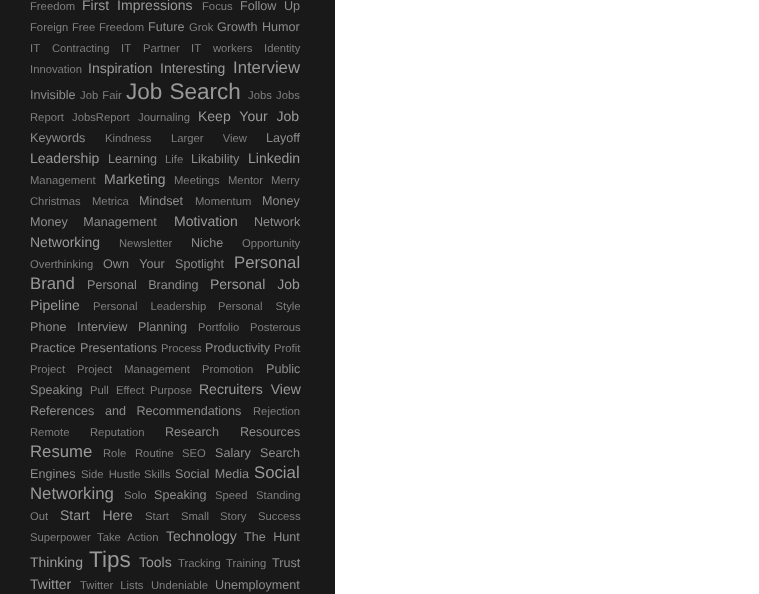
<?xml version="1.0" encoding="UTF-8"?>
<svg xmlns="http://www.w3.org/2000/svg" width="759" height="594">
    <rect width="100%" height="100%" fill="#FFFFFF"/>
    <rect x="0" y="0" width="335" height="594" fill="#191919"/>
    <text x="30" y="10" font-family="Liberation Sans" font-size="11.25" fill="#7F7F7F">Freedom</text>
    <text x="82" y="10" word-spacing="4" font-family="Liberation Sans" font-size="14" fill="#999999">First Impressions</text>
    <text x="202" y="10" font-family="Liberation Sans" font-size="11.25" fill="#7F7F7F">Focus</text>
    <text x="240" y="10" word-spacing="4" font-family="Liberation Sans" font-size="12.6" fill="#8C8C8C">Follow Up</text>
    <text x="30" y="31" font-family="Liberation Sans" font-size="11.25" fill="#7F7F7F">Foreign</text>
    <text x="72" y="31" font-family="Liberation Sans" font-size="11.25" fill="#7F7F7F">Free</text>
    <text x="99" y="31" font-family="Liberation Sans" font-size="11.25" fill="#7F7F7F">Freedom</text>
    <text x="148" y="31" font-family="Liberation Sans" font-size="12.6" fill="#8C8C8C">Future</text>
    <text x="189" y="31" font-family="Liberation Sans" font-size="11.25" fill="#7F7F7F">Grok</text>
    <text x="217" y="31" font-family="Liberation Sans" font-size="12.6" fill="#8C8C8C">Growth</text>
    <text x="262" y="31" font-family="Liberation Sans" font-size="12.6" fill="#8C8C8C">Humor</text>
    <text x="30" y="52" word-spacing="9" font-family="Liberation Sans" font-size="11.25" fill="#7F7F7F">IT Contracting</text>
    <text x="121" y="52" word-spacing="9" font-family="Liberation Sans" font-size="11.25" fill="#7F7F7F">IT Partner</text>
    <text x="191" y="52" word-spacing="9" font-family="Liberation Sans" font-size="11.25" fill="#7F7F7F">IT workers</text>
    <text x="264" y="52" font-family="Liberation Sans" font-size="11.25" fill="#7F7F7F">Identity</text>
    <text x="30" y="73" font-family="Liberation Sans" font-size="11.25" fill="#7F7F7F">Innovation</text>
    <text x="88" y="73" font-family="Liberation Sans" font-size="14" fill="#999999">Inspiration</text>
    <text x="160" y="73" font-family="Liberation Sans" font-size="14" fill="#999999">Interesting</text>
    <text x="233" y="73" font-family="Liberation Sans" font-size="16.75" fill="#999999">Interview</text>
    <text x="30" y="99" font-family="Liberation Sans" font-size="12.6" fill="#8C8C8C">Invisible</text>
    <text x="80" y="99" word-spacing="1" font-family="Liberation Sans" font-size="11.25" fill="#7F7F7F">Job Fair</text>
    <text x="126" y="99" word-spacing="1" font-family="Liberation Sans" font-size="22.5" fill="#999999">Job Search</text>
    <text x="248" y="99" font-family="Liberation Sans" font-size="11.25" fill="#7F7F7F">Jobs</text>
    <text x="276" y="99" font-family="Liberation Sans" font-size="11.25" fill="#7F7F7F">Jobs</text>
    <text x="30" y="121" font-family="Liberation Sans" font-size="11.25" fill="#7F7F7F">Report</text>
    <text x="72" y="121" font-family="Liberation Sans" font-size="11.25" fill="#7F7F7F">JobsReport</text>
    <text x="138" y="121" font-family="Liberation Sans" font-size="11.25" fill="#7F7F7F">Journaling</text>
    <text x="198" y="121" word-spacing="5" font-family="Liberation Sans" font-size="14" fill="#999999">Keep Your Job</text>
    <text x="30" y="142" font-family="Liberation Sans" font-size="12.6" fill="#8C8C8C">Keywords</text>
    <text x="105" y="142" font-family="Liberation Sans" font-size="11.25" fill="#7F7F7F">Kindness</text>
    <text x="171" y="142" word-spacing="16" font-family="Liberation Sans" font-size="11.25" fill="#7F7F7F">Larger View</text>
    <text x="266" y="142" font-family="Liberation Sans" font-size="12.6" fill="#8C8C8C">Layoff</text>
    <text x="30" y="163" font-family="Liberation Sans" font-size="14" fill="#999999">Leadership</text>
    <text x="108" y="163" font-family="Liberation Sans" font-size="12.6" fill="#8C8C8C">Learning</text>
    <text x="165" y="163" font-family="Liberation Sans" font-size="11.25" fill="#7F7F7F">Life</text>
    <text x="191" y="163" font-family="Liberation Sans" font-size="12.6" fill="#8C8C8C">Likability</text>
    <text x="248" y="163" font-family="Liberation Sans" font-size="14" fill="#999999">Linkedin</text>
    <text x="30" y="184" font-family="Liberation Sans" font-size="11.25" fill="#7F7F7F">Management</text>
    <text x="104" y="184" font-family="Liberation Sans" font-size="14" fill="#999999">Marketing</text>
    <text x="174" y="184" font-family="Liberation Sans" font-size="11.25" fill="#7F7F7F">Meetings</text>
    <text x="228" y="184" font-family="Liberation Sans" font-size="11.25" fill="#7F7F7F">Mentor</text>
    <text x="271" y="184" font-family="Liberation Sans" font-size="11.25" fill="#7F7F7F">Merry</text>
    <text x="30" y="205" font-family="Liberation Sans" font-size="11.25" fill="#7F7F7F">Christmas</text>
    <text x="92" y="205" font-family="Liberation Sans" font-size="11.25" fill="#7F7F7F">Metrica</text>
    <text x="139" y="205" font-family="Liberation Sans" font-size="12.6" fill="#8C8C8C">Mindset</text>
    <text x="195" y="205" font-family="Liberation Sans" font-size="11.25" fill="#7F7F7F">Momentum</text>
    <text x="262" y="205" font-family="Liberation Sans" font-size="12.6" fill="#8C8C8C">Money</text>
    <text x="30" y="226" word-spacing="12" font-family="Liberation Sans" font-size="12.6" fill="#8C8C8C">Money Management</text>
    <text x="174" y="226" font-family="Liberation Sans" font-size="14" fill="#999999">Motivation</text>
    <text x="254" y="226" font-family="Liberation Sans" font-size="12.6" fill="#8C8C8C">Network</text>
    <text x="30" y="247" font-family="Liberation Sans" font-size="14" fill="#999999">Networking</text>
    <text x="119" y="247" font-family="Liberation Sans" font-size="11.25" fill="#7F7F7F">Newsletter</text>
    <text x="191" y="247" font-family="Liberation Sans" font-size="12.6" fill="#8C8C8C">Niche</text>
    <text x="242" y="247" font-family="Liberation Sans" font-size="11.25" fill="#7F7F7F">Opportunity</text>
    <text x="30" y="268" font-family="Liberation Sans" font-size="11.25" fill="#7F7F7F">Overthinking</text>
    <text x="103" y="268" word-spacing="7" font-family="Liberation Sans" font-size="12.6" fill="#8C8C8C">Own Your Spotlight</text>
    <text x="234" y="268" font-family="Liberation Sans" font-size="16.75" fill="#999999">Personal</text>
    <text x="30" y="289" font-family="Liberation Sans" font-size="16.75" fill="#999999">Brand</text>
    <text x="87" y="289" word-spacing="8" font-family="Liberation Sans" font-size="12.6" fill="#8C8C8C">Personal Branding</text>
    <text x="210" y="289" word-spacing="8" font-family="Liberation Sans" font-size="14" fill="#999999">Personal Job</text>
    <text x="30" y="310" font-family="Liberation Sans" font-size="14" fill="#999999">Pipeline</text>
    <text x="93" y="310" word-spacing="10" font-family="Liberation Sans" font-size="11.25" fill="#7F7F7F">Personal Leadership</text>
    <text x="218" y="310" word-spacing="10" font-family="Liberation Sans" font-size="11.25" fill="#7F7F7F">Personal Style</text>
    <text x="30" y="331" word-spacing="7" font-family="Liberation Sans" font-size="12.6" fill="#8C8C8C">Phone Interview</text>
    <text x="138" y="331" font-family="Liberation Sans" font-size="12.6" fill="#8C8C8C">Planning</text>
    <text x="198" y="331" font-family="Liberation Sans" font-size="11.25" fill="#7F7F7F">Portfolio</text>
    <text x="250" y="331" font-family="Liberation Sans" font-size="11.25" fill="#7F7F7F">Posterous</text>
    <text x="30" y="352" font-family="Liberation Sans" font-size="12.6" fill="#8C8C8C">Practice</text>
    <text x="80" y="352" font-family="Liberation Sans" font-size="12.6" fill="#8C8C8C">Presentations</text>
    <text x="161" y="352" font-family="Liberation Sans" font-size="11.25" fill="#7F7F7F">Process</text>
    <text x="205" y="352" font-family="Liberation Sans" font-size="12.6" fill="#8C8C8C">Productivity</text>
    <text x="274" y="352" font-family="Liberation Sans" font-size="11.25" fill="#7F7F7F">Profit</text>
    <text x="30" y="373" font-family="Liberation Sans" font-size="11.25" fill="#7F7F7F">Project</text>
    <text x="77" y="373" word-spacing="9" font-family="Liberation Sans" font-size="11.25" fill="#7F7F7F">Project Management</text>
    <text x="202" y="373" font-family="Liberation Sans" font-size="11.25" fill="#7F7F7F">Promotion</text>
    <text x="266" y="373" font-family="Liberation Sans" font-size="12.6" fill="#8C8C8C">Public</text>
    <text x="30" y="394" font-family="Liberation Sans" font-size="12.6" fill="#8C8C8C">Speaking</text>
    <text x="90" y="394" word-spacing="4" font-family="Liberation Sans" font-size="11.25" fill="#7F7F7F">Pull Effect</text>
    <text x="150" y="394" font-family="Liberation Sans" font-size="11.25" fill="#7F7F7F">Purpose</text>
    <text x="199" y="394" word-spacing="4" font-family="Liberation Sans" font-size="14" fill="#999999">Recruiters View</text>
    <text x="30" y="415" word-spacing="7" font-family="Liberation Sans" font-size="12.6" fill="#8C8C8C">References and Recommendations</text>
    <text x="253" y="415" font-family="Liberation Sans" font-size="11.25" fill="#7F7F7F">Rejection</text>
    <text x="30" y="436" font-family="Liberation Sans" font-size="11.25" fill="#7F7F7F">Remote</text>
    <text x="90" y="436" font-family="Liberation Sans" font-size="11.25" fill="#7F7F7F">Reputation</text>
    <text x="165" y="436" font-family="Liberation Sans" font-size="12.6" fill="#8C8C8C">Research</text>
    <text x="240" y="436" font-family="Liberation Sans" font-size="12.6" fill="#8C8C8C">Resources</text>
    <text x="30" y="457" font-family="Liberation Sans" font-size="16.75" fill="#999999">Resume</text>
    <text x="103" y="457" font-family="Liberation Sans" font-size="11.25" fill="#7F7F7F">Role</text>
    <text x="135" y="457" font-family="Liberation Sans" font-size="11.25" fill="#7F7F7F">Routine</text>
    <text x="182" y="457" font-family="Liberation Sans" font-size="11.25" fill="#7F7F7F">SEO</text>
    <text x="215" y="457" font-family="Liberation Sans" font-size="12.6" fill="#8C8C8C">Salary</text>
    <text x="260" y="457" font-family="Liberation Sans" font-size="12.6" fill="#8C8C8C">Search</text>
    <text x="30" y="478" font-family="Liberation Sans" font-size="12.6" fill="#8C8C8C">Engines</text>
    <text x="81" y="478" word-spacing="2" font-family="Liberation Sans" font-size="11.25" fill="#7F7F7F">Side Hustle</text>
    <text x="144" y="478" font-family="Liberation Sans" font-size="11.25" fill="#7F7F7F">Skills</text>
    <text x="175" y="478" word-spacing="2" font-family="Liberation Sans" font-size="12.6" fill="#8C8C8C">Social Media</text>
    <text x="254" y="478" font-family="Liberation Sans" font-size="16.75" fill="#999999">Social</text>
    <text x="30" y="499" font-family="Liberation Sans" font-size="16.75" fill="#999999">Networking</text>
    <text x="124" y="499" font-family="Liberation Sans" font-size="11.25" fill="#7F7F7F">Solo</text>
    <text x="154" y="499" font-family="Liberation Sans" font-size="12.6" fill="#8C8C8C">Speaking</text>
    <text x="215" y="499" font-family="Liberation Sans" font-size="11.25" fill="#7F7F7F">Speed</text>
    <text x="256" y="499" font-family="Liberation Sans" font-size="11.25" fill="#7F7F7F">Standing</text>
    <text x="30" y="520" font-family="Liberation Sans" font-size="11.25" fill="#7F7F7F">Out</text>
    <text x="60" y="520" word-spacing="9" font-family="Liberation Sans" font-size="14" fill="#999999">Start Here</text>
    <text x="145" y="520" word-spacing="9" font-family="Liberation Sans" font-size="11.25" fill="#7F7F7F">Start Small</text>
    <text x="220" y="520" font-family="Liberation Sans" font-size="11.25" fill="#7F7F7F">Story</text>
    <text x="258" y="520" font-family="Liberation Sans" font-size="11.25" fill="#7F7F7F">Success</text>
    <text x="30" y="541" font-family="Liberation Sans" font-size="11.25" fill="#7F7F7F">Superpower</text>
    <text x="97" y="541" word-spacing="4" font-family="Liberation Sans" font-size="11.25" fill="#7F7F7F">Take Action</text>
    <text x="166" y="541" font-family="Liberation Sans" font-size="14" fill="#999999">Technology</text>
    <text x="244" y="541" word-spacing="4" font-family="Liberation Sans" font-size="12.6" fill="#8C8C8C">The Hunt</text>
    <text x="30" y="567" font-family="Liberation Sans" font-size="14" fill="#999999">Thinking</text>
    <text x="89" y="567" font-family="Liberation Sans" font-size="22.5" fill="#999999">Tips</text>
    <text x="139" y="567" font-family="Liberation Sans" font-size="14" fill="#999999">Tools</text>
    <text x="178" y="567" font-family="Liberation Sans" font-size="11.25" fill="#7F7F7F">Tracking</text>
    <text x="226" y="567" font-family="Liberation Sans" font-size="11.25" fill="#7F7F7F">Training</text>
    <text x="272" y="567" font-family="Liberation Sans" font-size="12.6" fill="#8C8C8C">Trust</text>
    <text x="30" y="589" font-family="Liberation Sans" font-size="14" fill="#999999">Twitter</text>
    <text x="80" y="589" word-spacing="4" font-family="Liberation Sans" font-size="11.25" fill="#7F7F7F">Twitter Lists</text>
    <text x="151" y="589" font-family="Liberation Sans" font-size="11.25" fill="#7F7F7F">Undeniable</text>
    <text x="215" y="589" font-family="Liberation Sans" font-size="12.6" fill="#8C8C8C">Unemployment</text>
</svg>
